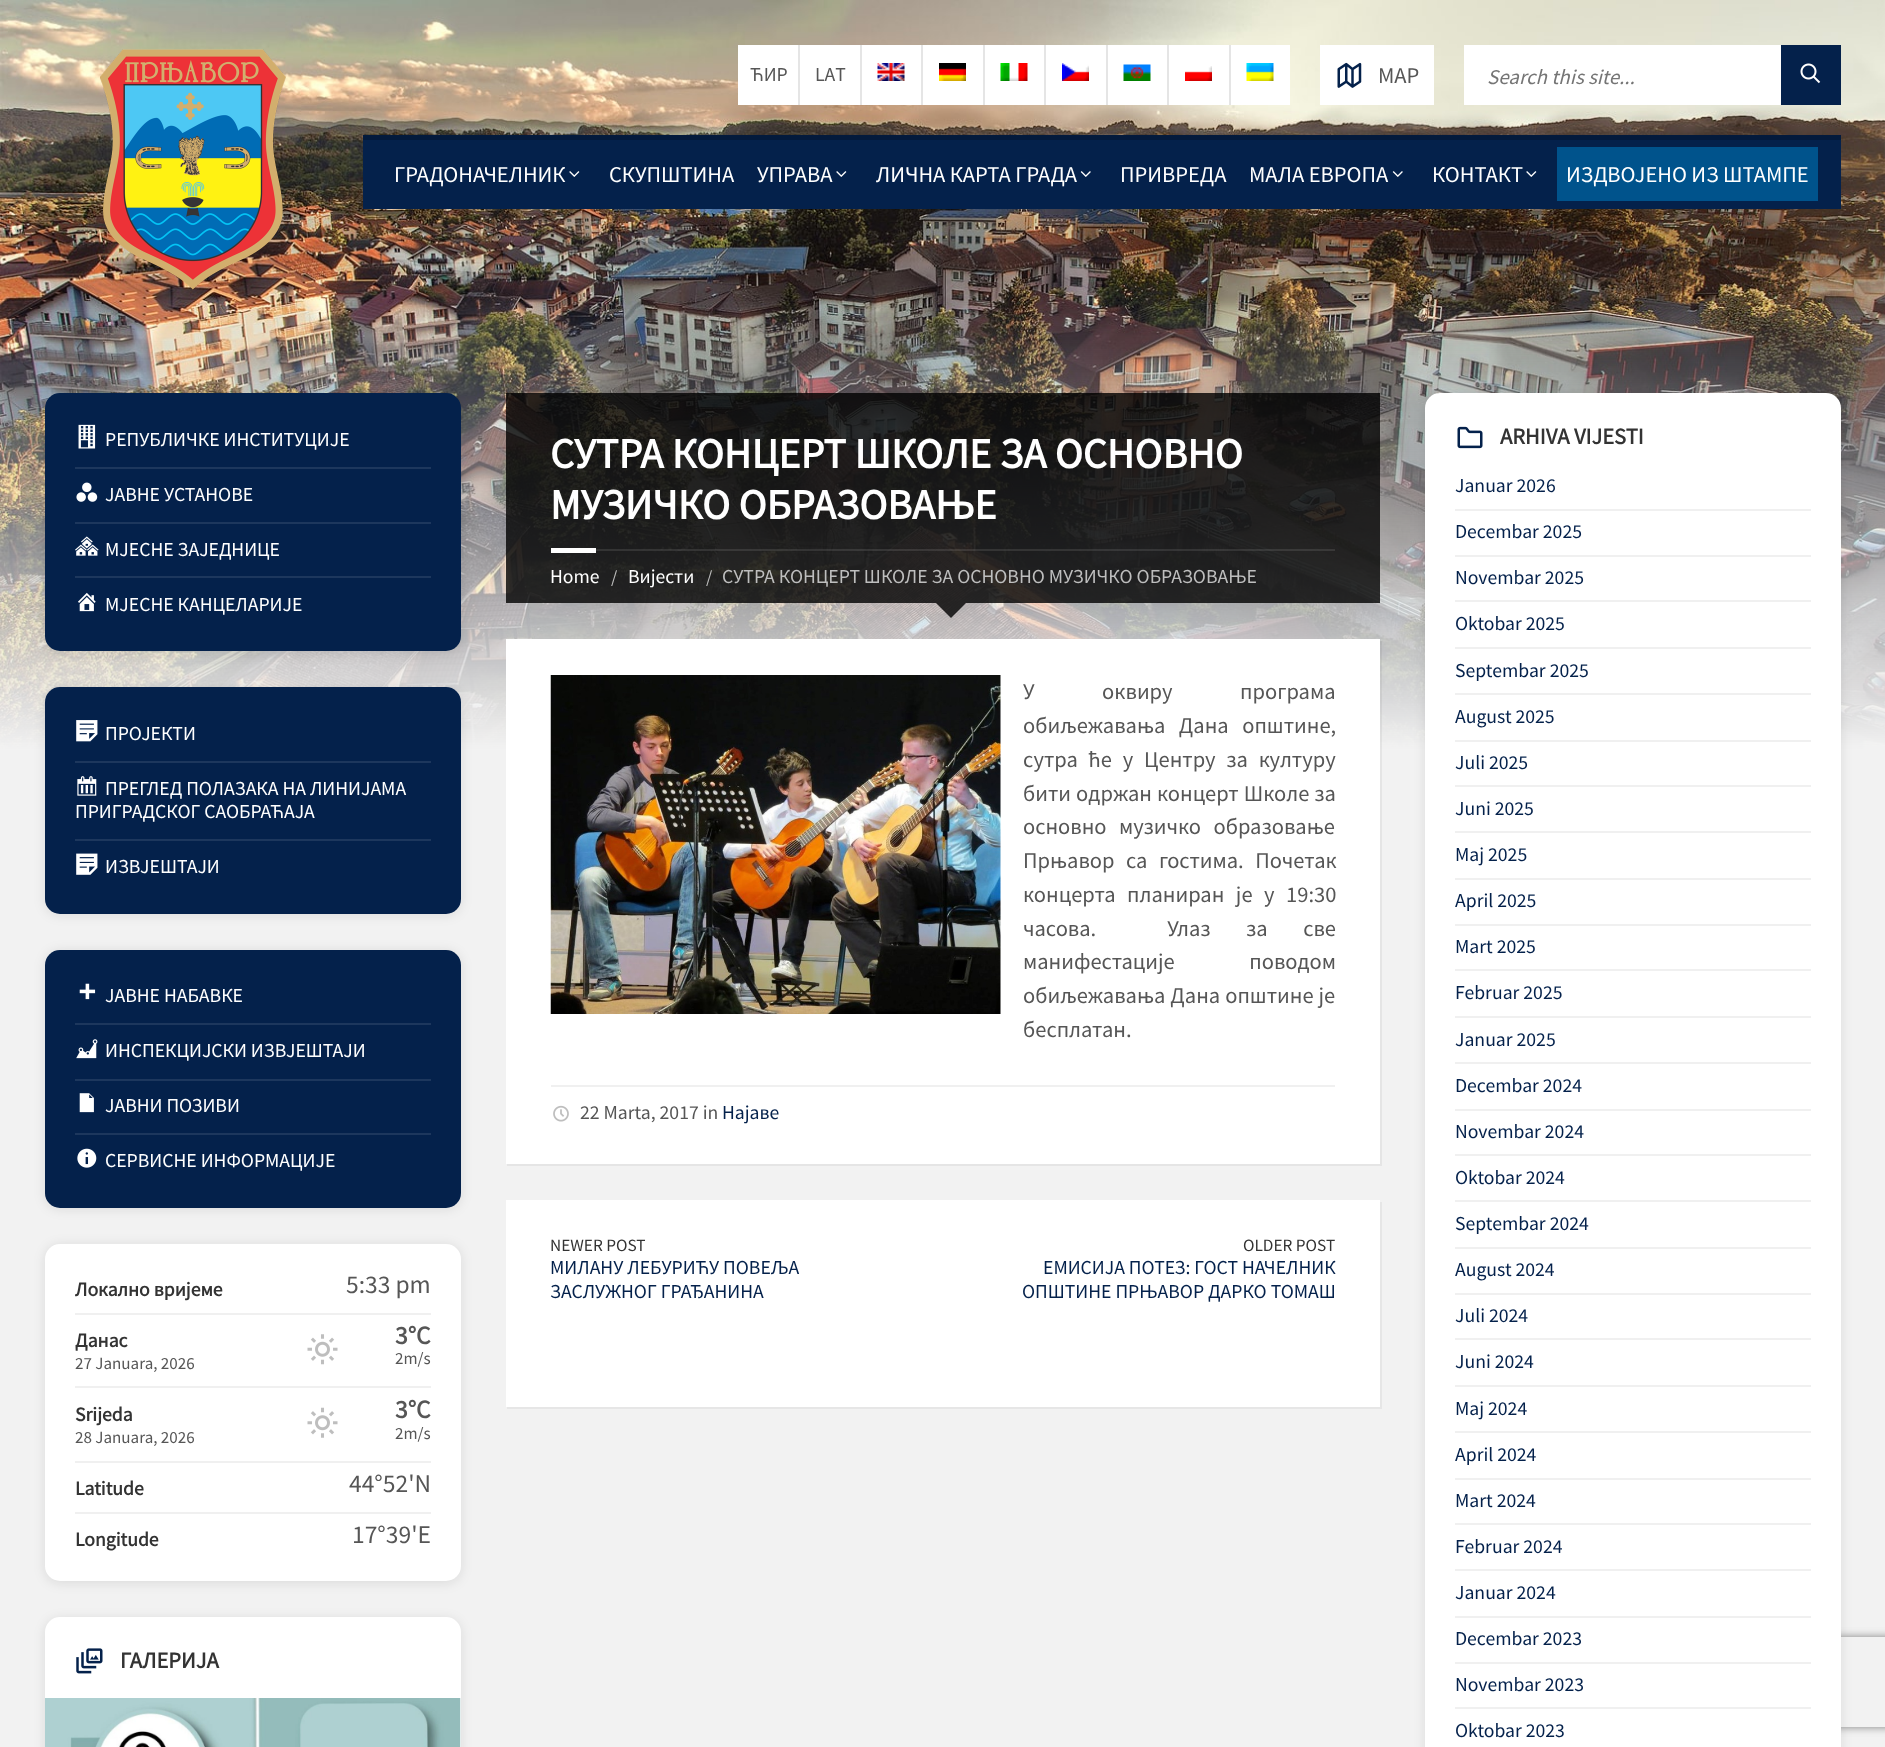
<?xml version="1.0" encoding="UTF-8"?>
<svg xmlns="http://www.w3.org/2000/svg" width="1885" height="1747">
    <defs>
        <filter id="blur1" x="-50%" y="-200%" width="200%" height="500%"><feGaussianBlur stdDeviation="6"/></filter>
        <clipPath id="clip1"><path d="M 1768 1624 H 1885 V 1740 H 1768 Z M 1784 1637 H 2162 C 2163.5 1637 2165 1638.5 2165 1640 V 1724 C 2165 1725.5 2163.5 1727 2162 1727 H 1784 C 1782.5 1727 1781 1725.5 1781 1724 V 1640 C 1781 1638.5 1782.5 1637 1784 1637 Z" clip-rule="evenodd"/></clipPath>
        <filter id="blur2" x="-50%" y="-200%" width="200%" height="500%"><feGaussianBlur stdDeviation="4"/></filter>
    </defs>
    <rect width="100%" height="100%" fill="#F2F2F2"/>
    <image x="0" y="0" width="1885" height="750" href="img_01.png"/>
    <image x="100" y="49" width="186" height="241" href="img_02.png"/>
    <rect x="738" y="45" width="60" height="60" fill="#FFFFFF"/>
    <text x="750" y="81" font-family="Source Sans Pro" font-size="19.7" fill="#565656">ЋИР</text>
    <rect x="800" y="45" width="60" height="60" fill="#FFFFFF"/>
    <rect x="798" y="45" width="2" height="60" fill="#E5E5E5"/>
    <text x="815" y="81" font-family="Source Sans Pro" font-size="19.7" fill="#565656">LAT</text>
    <rect x="862" y="45" width="59" height="60" fill="#FFFFFF"/>
    <rect x="860" y="45" width="2" height="60" fill="#E5E5E5"/>
    <image x="877" y="63" width="28" height="18" href="img_03.png"/>
    <rect x="923" y="45" width="60" height="60" fill="#FFFFFF"/>
    <rect x="921" y="45" width="2" height="60" fill="#E5E5E5"/>
    <image x="939" y="63" width="27" height="18" href="img_04.png"/>
    <rect x="985" y="45" width="59" height="60" fill="#FFFFFF"/>
    <rect x="983" y="45" width="2" height="60" fill="#E5E5E5"/>
    <image x="1000" y="63" width="28" height="18" href="img_05.png"/>
    <rect x="1046" y="45" width="60" height="60" fill="#FFFFFF"/>
    <rect x="1044" y="45" width="2" height="60" fill="#E5E5E5"/>
    <image x="1062" y="63" width="27" height="18" href="img_06.png"/>
    <rect x="1108" y="45" width="59" height="60" fill="#FFFFFF"/>
    <rect x="1106" y="45" width="2" height="60" fill="#E5E5E5"/>
    <image x="1123" y="64" width="28" height="17" href="img_07.png"/>
    <rect x="1169" y="45" width="60" height="60" fill="#FFFFFF"/>
    <rect x="1167" y="45" width="2" height="60" fill="#E5E5E5"/>
    <image x="1185" y="66" width="27" height="15" href="img_08.png"/>
    <rect x="1231" y="45" width="59" height="60" fill="#FFFFFF"/>
    <rect x="1229" y="45" width="2" height="60" fill="#E5E5E5"/>
    <image x="1246" y="63" width="28" height="18" href="img_09.png"/>
    <rect x="1320" y="45" width="114" height="60" fill="#FFFFFF"/>
    <image x="1337" y="62" width="25" height="26" href="img_10.png"/>
    <text x="1378" y="83" font-family="Source Sans Pro" font-size="22.5" fill="#565656">MAP</text>
    <rect x="1464" y="45" width="317" height="60" fill="#FFFFFF"/>
    <text x="1487" y="84" font-family="Source Sans Pro" font-size="21" font-style="italic" fill="#757575">Search this site...</text>
    <rect x="1781" y="45" width="60" height="60" fill="#04214B"/>
    <image x="1800" y="63" width="21" height="21" href="img_11.png"/>
    <rect x="363" y="140" width="1478" height="69" fill="#04214B"/>
    <rect x="363" y="135" width="1478" height="5" fill="#031A3C"/>
    <text x="394" y="182" font-family="Source Sans Pro" font-size="22.5" fill="#FFFFFF">ГРАДОНАЧЕЛНИК</text>
    <image x="569" y="171" width="11" height="6" href="img_12.png"/>
    <text x="609" y="182" font-family="Source Sans Pro" font-size="22.5" fill="#FFFFFF">СКУПШТИНА</text>
    <text x="757" y="182" font-family="Source Sans Pro" font-size="22.5" fill="#FFFFFF">УПРАВА</text>
    <image x="836" y="171" width="11" height="6" href="img_12.png"/>
    <text x="876" y="182" font-family="Source Sans Pro" font-size="22.5" fill="#FFFFFF">ЛИЧНА КАРТА ГРАДА</text>
    <image x="1080" y="171" width="11" height="6" href="img_13.png"/>
    <text x="1120" y="182" font-family="Source Sans Pro" font-size="22.5" fill="#FFFFFF">ПРИВРЕДА</text>
    <text x="1249" y="182" font-family="Source Sans Pro" font-size="22.5" fill="#FFFFFF">МАЛА ЕВРОПА</text>
    <image x="1392" y="171" width="11" height="6" href="img_13.png"/>
    <text x="1432" y="182" font-family="Source Sans Pro" font-size="22.5" fill="#FFFFFF">КОНТАКТ</text>
    <image x="1526" y="171" width="11" height="6" href="img_12.png"/>
    <rect x="1557" y="147" width="261" height="54" fill="#00538C"/>
    <text x="1566" y="182" font-family="Source Sans Pro" font-size="22.5" fill="#FFFFFF">ИЗДВОЈЕНО ИЗ ШТАМПЕ</text>
    <rect x="45" y="395" width="416" height="258" rx="15" fill="#000000" fill-opacity="0.1" filter="url(#blur1)"/>
    <rect x="45" y="393" width="416" height="258" rx="15" fill="#04214B"/>
    <image x="78" y="424" width="18" height="25" href="img_14.png"/>
    <text x="105" y="446" font-family="Source Sans Pro" font-size="19.7" fill="#FFFFFF">РЕПУБЛИЧКЕ ИНСТИТУЦИЈЕ</text>
    <rect x="75" y="467" width="356" height="2" fill="#1D375D"/>
    <image x="76" y="482" width="22" height="20" href="img_15.png"/>
    <text x="105" y="501" font-family="Source Sans Pro" font-size="19.7" fill="#FFFFFF">ЈАВНЕ УСТАНОВЕ</text>
    <rect x="75" y="522" width="356" height="2" fill="#1D375D"/>
    <image x="75" y="536" width="24" height="20" href="img_16.png"/>
    <text x="105" y="556" font-family="Source Sans Pro" font-size="19.7" fill="#FFFFFF">МЈЕСНЕ ЗАЈЕДНИЦЕ</text>
    <rect x="75" y="576" width="356" height="2" fill="#1D375D"/>
    <image x="78" y="592" width="18" height="20" href="img_17.png"/>
    <text x="105" y="611" font-family="Source Sans Pro" font-size="19.7" fill="#FFFFFF">МЈЕСНЕ КАНЦЕЛАРИЈЕ</text>
    <rect x="45" y="689" width="416" height="226" rx="15" fill="#000000" fill-opacity="0.1" filter="url(#blur1)"/>
    <rect x="45" y="687" width="416" height="227" rx="15" fill="#04214B"/>
    <image x="76" y="720" width="22" height="22" href="img_18.png"/>
    <text x="105" y="740" font-family="Source Sans Pro" font-size="19.7" fill="#FFFFFF">ПРОЈЕКТИ</text>
    <rect x="75" y="761" width="356" height="2" fill="#1D375D"/>
    <image x="77" y="776" width="20" height="20" href="img_19.png"/>
    <text x="105" y="795" font-family="Source Sans Pro" font-size="19.7" fill="#FFFFFF">ПРЕГЛЕД ПОЛАЗАКА НА ЛИНИЈАМА</text>
    <text x="75" y="818" font-family="Source Sans Pro" font-size="19.7" fill="#FFFFFF">ПРИГРАДСКОГ САОБРАЋАЈА</text>
    <rect x="75" y="839" width="356" height="2" fill="#1D375D"/>
    <image x="76" y="853" width="22" height="22" href="img_20.png"/>
    <text x="105" y="873" font-family="Source Sans Pro" font-size="19.7" fill="#FFFFFF">ИЗВЈЕШТАЈИ</text>
    <rect x="45" y="951" width="416" height="258" rx="15" fill="#000000" fill-opacity="0.1" filter="url(#blur1)"/>
    <rect x="45" y="950" width="416" height="258" rx="15" fill="#04214B"/>
    <image x="79" y="983" width="17" height="17" href="img_21.png"/>
    <text x="105" y="1002" font-family="Source Sans Pro" font-size="19.7" fill="#FFFFFF">ЈАВНЕ НАБАВКЕ</text>
    <rect x="75" y="1023" width="356" height="2" fill="#1D375D"/>
    <image x="76" y="1039" width="22" height="20" href="img_22.png"/>
    <text x="105" y="1057" font-family="Source Sans Pro" font-size="19.7" fill="#FFFFFF">ИНСПЕКЦИЈСКИ ИЗВЈЕШТАЈИ</text>
    <rect x="75" y="1079" width="356" height="2" fill="#1D375D"/>
    <image x="79" y="1093" width="15" height="20" href="img_23.png"/>
    <text x="105" y="1112" font-family="Source Sans Pro" font-size="19.7" fill="#FFFFFF">ЈАВНИ ПОЗИВИ</text>
    <rect x="75" y="1133" width="356" height="2" fill="#1D375D"/>
    <image x="77" y="1148" width="20" height="20" href="img_24.png"/>
    <text x="105" y="1167" font-family="Source Sans Pro" font-size="19.7" fill="#FFFFFF">СЕРВИСНЕ ИНФОРМАЦИЈЕ</text>
    <rect x="45" y="1245" width="416" height="338" rx="15" fill="#000000" fill-opacity="0.1" filter="url(#blur1)"/>
    <rect x="45" y="1244" width="416" height="337" rx="15" fill="#FFFFFF"/>
    <text x="75" y="1296" font-family="Source Sans Pro" font-size="19.7" font-weight="700" fill="#333333">Локално вријеме</text>
    <text x="346" y="1293" font-family="Source Sans Pro" font-size="25.5" fill="#565656">5:33 pm</text>
    <rect x="75" y="1313" width="356" height="2" fill="#F0F0F0"/>
    <text x="75" y="1347" font-family="Source Sans Pro" font-size="19.7" font-weight="700" fill="#333333">Данас</text>
    <text x="75" y="1369" font-family="Source Sans Pro" font-size="17" fill="#565656">27 Januara, 2026</text>
    <image x="307" y="1334" width="31" height="31" href="img_25.png"/>
    <text x="395" y="1344" font-family="Source Sans Pro" font-size="25.5" font-weight="700" fill="#565656">3°C</text>
    <text x="395" y="1364" font-family="Source Sans Pro" font-size="17" fill="#565656">2m/s</text>
    <rect x="75" y="1386" width="356" height="2" fill="#F0F0F0"/>
    <text x="75" y="1421" font-family="Source Sans Pro" font-size="19.7" font-weight="700" fill="#333333">Srijeda</text>
    <text x="75" y="1443" font-family="Source Sans Pro" font-size="17" fill="#565656">28 Januara, 2026</text>
    <image x="307" y="1407" width="31" height="31" href="img_26.png"/>
    <text x="395" y="1418" font-family="Source Sans Pro" font-size="25.5" font-weight="700" fill="#565656">3°C</text>
    <text x="395" y="1439" font-family="Source Sans Pro" font-size="17" fill="#565656">2m/s</text>
    <rect x="75" y="1461" width="356" height="2" fill="#F0F0F0"/>
    <text x="75" y="1495" font-family="Source Sans Pro" font-size="19.7" font-weight="700" fill="#333333">Latitude</text>
    <text x="349" y="1492" font-family="Source Sans Pro" font-size="25.5" fill="#565656">44°52'N</text>
    <rect x="75" y="1512" width="356" height="2" fill="#F0F0F0"/>
    <text x="75" y="1546" font-family="Source Sans Pro" font-size="19.7" font-weight="700" fill="#333333">Longitude</text>
    <text x="352" y="1543" font-family="Source Sans Pro" font-size="25.5" fill="#565656">17°39'E</text>
    <rect x="45" y="1619" width="416" height="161" rx="15" fill="#000000" fill-opacity="0.1" filter="url(#blur1)"/>
    <rect x="45" y="1617" width="416" height="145" rx="15" fill="#FFFFFF"/>
    <image x="76" y="1648" width="27" height="26" href="img_27.png"/>
    <text x="120" y="1668" font-family="Source Sans Pro" font-size="22.5" font-weight="700" fill="#333333">ГАЛЕРИЈА</text>
    <image x="45" y="1698" width="416" height="49" href="img_28.png"/>
    <rect x="506" y="393" width="874" height="210" fill="#000000" fill-opacity="0.8"/>
    <rect x="596" y="549" width="739" height="2" fill="#FFFFFF" fill-opacity="0.1"/>
    <text font-family="Source Sans Pro" font-size="42.25" font-weight="700" fill="#FFFFFF">
        <tspan x="550" y="468">СУТРА КОНЦЕРТ ШКОЛЕ ЗА ОСНОВНО</tspan>
        <tspan x="550" y="519">МУЗИЧКО ОБРАЗОВАЊЕ</tspan>
    </text>
    <rect x="551" y="548" width="45" height="5" fill="#FFFFFF"/>
    <text x="550" y="583" font-family="Source Sans Pro" font-size="19.7" fill="#FFFFFF">Home</text>
    <text x="611" y="583" font-family="Source Sans Pro" font-size="18" fill="#BEBEBE">/</text>
    <text x="628" y="583" font-family="Source Sans Pro" font-size="19.7" fill="#FFFFFF">Вијести</text>
    <text x="706" y="583" font-family="Source Sans Pro" font-size="18" fill="#BEBEBE">/</text>
    <text x="722" y="583" font-family="Source Sans Pro" font-size="19.7" fill="#BEBEBE">СУТРА КОНЦЕРТ ШКОЛЕ ЗА ОСНОВНО МУЗИЧКО ОБРАЗОВАЊЕ</text>
    <path d="M 936 603 H 966 L 951 618 Z" fill="#000000" fill-opacity="0.8"/>
    <path d="M 507 1164 V 1166 H 1382 V 641 H 1380 V 1164 Z" fill="#000000" fill-opacity="0.05"/>
    <rect x="506" y="639" width="874" height="525" fill="#FFFFFF"/>
    <image x="550" y="675" width="451" height="339" href="img_29.png"/>
    <text font-family="Source Sans Pro" font-size="22.5" fill="#565656" xml:space="preserve"><tspan x="1023" y="699" word-spacing="63">У оквиру програма</tspan><tspan x="1023" y="733" word-spacing="9">обиљежавања Дана општине,</tspan><tspan x="1023" y="767" word-spacing="6.25">сутра ће у Центру за културу</tspan><tspan x="1023" y="801" word-spacing="0.5">бити одржан концерт Школе за</tspan><tspan x="1023" y="834" word-spacing="8">основно музичко образовање</tspan><tspan x="1023" y="868" word-spacing="7">Прњавор са гостима. Почетак</tspan><tspan x="1023" y="902" word-spacing="7">концерта планиран је у 19:30</tspan><tspan x="1023" y="936" word-spacing="31">часова.  Улаз за све</tspan><tspan x="1023" y="969" word-spacing="70">манифестације поводом</tspan><tspan x="1023" y="1003" word-spacing="0.5">обиљежавања Дана општине је</tspan><tspan x="1023" y="1037">бесплатан.</tspan></text>
    <rect x="551" y="1085" width="784" height="2" fill="#F0F0F0"/>
    <image x="553" y="1105" width="16" height="17" href="img_30.png"/>
    <text x="580" y="1119" font-family="Source Sans Pro" font-size="19.7" fill="#565656">22 Marta, 2017 in</text>
    <text x="722" y="1119" font-family="Source Sans Pro" font-size="19.7" fill="#04214B">Најаве</text>
    <path d="M 507 1407 V 1409 H 1382 V 1202 H 1380 V 1407 Z" fill="#E6E6E6"/>
    <rect x="506" y="1200" width="874" height="207" fill="#FFFFFF"/>
    <text x="550" y="1251" font-family="Source Sans Pro" font-size="17.25" fill="#333333">NEWER POST</text>
    <text font-family="Source Sans Pro" font-size="19.7" fill="#04214B">
        <tspan x="550" y="1274">МИЛАНУ ЛЕБУРИЋУ ПОВЕЉА</tspan>
        <tspan x="550" y="1298">ЗАСЛУЖНОГ ГРАЂАНИНА</tspan>
    </text>
    <text x="1243" y="1251" font-family="Source Sans Pro" font-size="17.25" fill="#333333">OLDER POST</text>
    <text x="1043" y="1274" font-family="Source Sans Pro" font-size="19.7" fill="#04214B">ЕМИСИЈА ПОТЕЗ: ГОСТ НАЧЕЛНИК</text>
    <text x="1022" y="1298" font-family="Source Sans Pro" font-size="19.7" fill="#04214B">ОПШТИНЕ ПРЊАВОР ДАРКО ТОМАШ</text>
    <rect x="1425" y="395" width="416" height="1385" rx="15" fill="#000000" fill-opacity="0.1" filter="url(#blur1)"/>
    <g clip-path="url(#clip1)">
        <rect x="1781" y="1637" width="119" height="90" rx="3" fill="#808080" filter="url(#blur2)"/>
    </g>
    <rect x="1425" y="393" width="416" height="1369" rx="15" fill="#FFFFFF"/>
    <image x="1457" y="426" width="26" height="23" href="img_31.png"/>
    <text x="1500" y="444" font-family="Source Sans Pro" font-size="22.5" font-weight="700" fill="#333333">ARHIVA VIJESTI</text>
    <text x="1455" y="492" font-family="Source Sans Pro" font-size="19.7" fill="#04214B">Januar 2026</text>
    <rect x="1455" y="509" width="356" height="2" fill="#F0F0F0"/>
    <text x="1455" y="538" font-family="Source Sans Pro" font-size="19.7" fill="#04214B">Decembar 2025</text>
    <rect x="1455" y="555" width="356" height="2" fill="#F0F0F0"/>
    <text x="1455" y="584" font-family="Source Sans Pro" font-size="19.7" fill="#04214B">Novembar 2025</text>
    <rect x="1455" y="600" width="356" height="2" fill="#F0F0F0"/>
    <text x="1455" y="630" font-family="Source Sans Pro" font-size="19.7" fill="#04214B">Oktobar 2025</text>
    <rect x="1455" y="647" width="356" height="2" fill="#F0F0F0"/>
    <text x="1455" y="677" font-family="Source Sans Pro" font-size="19.7" fill="#04214B">Septembar 2025</text>
    <rect x="1455" y="693" width="356" height="2" fill="#F0F0F0"/>
    <text x="1455" y="723" font-family="Source Sans Pro" font-size="19.7" fill="#04214B">August 2025</text>
    <rect x="1455" y="740" width="356" height="2" fill="#F0F0F0"/>
    <text x="1455" y="769" font-family="Source Sans Pro" font-size="19.7" fill="#04214B">Juli 2025</text>
    <rect x="1455" y="785" width="356" height="2" fill="#F0F0F0"/>
    <text x="1455" y="815" font-family="Source Sans Pro" font-size="19.7" fill="#04214B">Juni 2025</text>
    <rect x="1455" y="831" width="356" height="2" fill="#F0F0F0"/>
    <text x="1455" y="861" font-family="Source Sans Pro" font-size="19.7" fill="#04214B">Maj 2025</text>
    <rect x="1455" y="878" width="356" height="2" fill="#F0F0F0"/>
    <text x="1455" y="907" font-family="Source Sans Pro" font-size="19.7" fill="#04214B">April 2025</text>
    <rect x="1455" y="924" width="356" height="2" fill="#F0F0F0"/>
    <text x="1455" y="953" font-family="Source Sans Pro" font-size="19.7" fill="#04214B">Mart 2025</text>
    <rect x="1455" y="969" width="356" height="2" fill="#F0F0F0"/>
    <text x="1455" y="999" font-family="Source Sans Pro" font-size="19.7" fill="#04214B">Februar 2025</text>
    <rect x="1455" y="1016" width="356" height="2" fill="#F0F0F0"/>
    <text x="1455" y="1046" font-family="Source Sans Pro" font-size="19.7" fill="#04214B">Januar 2025</text>
    <rect x="1455" y="1062" width="356" height="2" fill="#F0F0F0"/>
    <text x="1455" y="1092" font-family="Source Sans Pro" font-size="19.7" fill="#04214B">Decembar 2024</text>
    <rect x="1455" y="1109" width="356" height="2" fill="#F0F0F0"/>
    <text x="1455" y="1138" font-family="Source Sans Pro" font-size="19.7" fill="#04214B">Novembar 2024</text>
    <rect x="1455" y="1154" width="356" height="2" fill="#F0F0F0"/>
    <text x="1455" y="1184" font-family="Source Sans Pro" font-size="19.7" fill="#04214B">Oktobar 2024</text>
    <rect x="1455" y="1200" width="356" height="2" fill="#F0F0F0"/>
    <text x="1455" y="1230" font-family="Source Sans Pro" font-size="19.7" fill="#04214B">Septembar 2024</text>
    <rect x="1455" y="1247" width="356" height="2" fill="#F0F0F0"/>
    <text x="1455" y="1276" font-family="Source Sans Pro" font-size="19.7" fill="#04214B">August 2024</text>
    <rect x="1455" y="1293" width="356" height="2" fill="#F0F0F0"/>
    <text x="1455" y="1322" font-family="Source Sans Pro" font-size="19.7" fill="#04214B">Juli 2024</text>
    <rect x="1455" y="1338" width="356" height="2" fill="#F0F0F0"/>
    <text x="1455" y="1368" font-family="Source Sans Pro" font-size="19.7" fill="#04214B">Juni 2024</text>
    <rect x="1455" y="1385" width="356" height="2" fill="#F0F0F0"/>
    <text x="1455" y="1415" font-family="Source Sans Pro" font-size="19.7" fill="#04214B">Maj 2024</text>
    <rect x="1455" y="1431" width="356" height="2" fill="#F0F0F0"/>
    <text x="1455" y="1461" font-family="Source Sans Pro" font-size="19.7" fill="#04214B">April 2024</text>
    <rect x="1455" y="1478" width="356" height="2" fill="#F0F0F0"/>
    <text x="1455" y="1507" font-family="Source Sans Pro" font-size="19.7" fill="#04214B">Mart 2024</text>
    <rect x="1455" y="1523" width="356" height="2" fill="#F0F0F0"/>
    <text x="1455" y="1553" font-family="Source Sans Pro" font-size="19.7" fill="#04214B">Februar 2024</text>
    <rect x="1455" y="1569" width="356" height="2" fill="#F0F0F0"/>
    <text x="1455" y="1599" font-family="Source Sans Pro" font-size="19.7" fill="#04214B">Januar 2024</text>
    <rect x="1455" y="1616" width="356" height="2" fill="#F0F0F0"/>
    <text x="1455" y="1645" font-family="Source Sans Pro" font-size="19.7" fill="#04214B">Decembar 2023</text>
    <rect x="1455" y="1662" width="356" height="2" fill="#F0F0F0"/>
    <text x="1455" y="1691" font-family="Source Sans Pro" font-size="19.7" fill="#04214B">Novembar 2023</text>
    <rect x="1455" y="1707" width="356" height="2" fill="#F0F0F0"/>
    <text x="1455" y="1737" font-family="Source Sans Pro" font-size="19.7" fill="#04214B">Oktobar 2023</text>
</svg>
